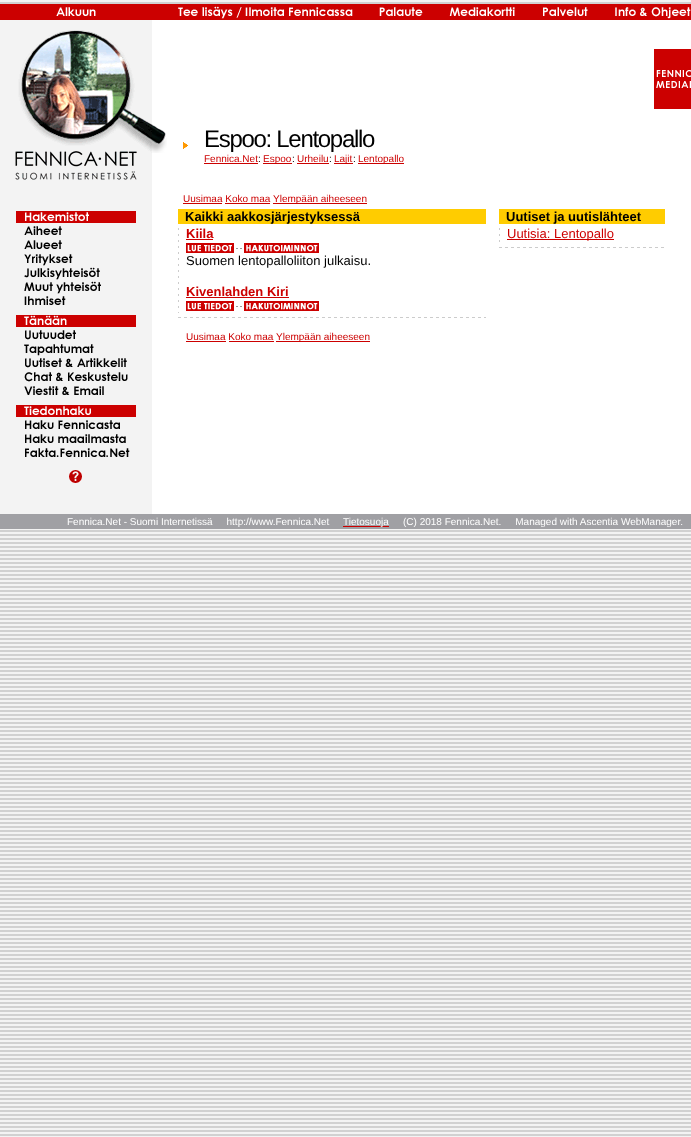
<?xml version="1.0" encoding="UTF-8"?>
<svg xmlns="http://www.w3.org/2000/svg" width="691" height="1137">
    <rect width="100%" height="100%" fill="#FFFFFF"/>
    <image x="0" y="0" width="691" height="1137" href="img_01.png"/>
    <image x="0" y="4" width="691" height="16" href="img_02.png"/>
    <rect x="152" y="20" width="539" height="494" fill="#FFFFFF"/>
    <rect x="0" y="22" width="152" height="186" fill="#F3F3F3"/>
    <image x="15" y="30" width="137" height="150" href="img_03.png"/>
    <image x="152" y="124" width="15" height="29" href="img_04.png"/>
    <rect x="654" y="49" width="37" height="60" fill="#CC0000"/>
    <image x="656" y="70" width="35" height="18" href="img_05.png"/>
    <image x="183" y="142" width="5" height="7" href="img_06.png"/>
    <text x="204" y="147" font-family="Liberation Sans" font-size="24" letter-spacing="-1.3" fill="#000000">Espoo: Lentopallo</text>
    <text x="204" y="162" font-family="Liberation Sans" font-size="10" fill="#CC0000">Fennica.Net</text>
    <text x="258" y="162" font-family="Liberation Sans" font-size="10" fill="#000000">:</text>
    <rect x="204" y="163" width="54" height="1" fill="#CC0000"/>
    <rect x="263" y="163" width="29" height="1" fill="#CC0000"/>
    <text x="263" y="162" font-family="Liberation Sans" font-size="10" fill="#CC0000">Espoo</text>
    <text x="292" y="162" font-family="Liberation Sans" font-size="10" fill="#000000">:</text>
    <text x="297" y="162" font-family="Liberation Sans" font-size="10" fill="#CC0000">Urheilu</text>
    <text x="329" y="162" font-family="Liberation Sans" font-size="10" fill="#000000">:</text>
    <rect x="297" y="163" width="32" height="1" fill="#CC0000"/>
    <rect x="334" y="163" width="19" height="1" fill="#CC0000"/>
    <text x="334" y="162" font-family="Liberation Sans" font-size="10" fill="#CC0000">Lajit</text>
    <text x="353" y="162" font-family="Liberation Sans" font-size="10" fill="#000000">:</text>
    <rect x="358" y="163" width="46" height="1" fill="#CC0000"/>
    <text x="358" y="162" font-family="Liberation Sans" font-size="10" fill="#CC0000">Lentopallo</text>
    <text x="183" y="202" font-family="Liberation Sans" font-size="10" fill="#CC0000">Uusimaa Koko maa</text>
    <rect x="183" y="203" width="39" height="1" fill="#CC0000"/>
    <rect x="225" y="203" width="45" height="1" fill="#CC0000"/>
    <rect x="273" y="203" width="94" height="1" fill="#CC0000"/>
    <text x="273" y="202" font-family="Liberation Sans" font-size="10" fill="#CC0000">Ylempään aiheeseen</text>
    <rect x="0" y="210" width="152" height="278" fill="#F3F3F3"/>
    <image x="16" y="211" width="120" height="272" href="img_07.png"/>
    <rect x="178" y="209" width="308" height="15" fill="#FFCC00"/>
    <text x="185" y="221" font-family="Liberation Sans" font-size="13" font-weight="700" fill="#000000">Kaikki aakkosjärjestyksessä</text>
    <image x="178" y="228" width="1" height="85" href="img_08.png"/>
    <text x="186" y="238" font-family="Liberation Sans" font-size="13" font-weight="700" fill="#CC0000">Kiila</text>
    <rect x="186" y="239" width="27" height="1" fill="#CC0000"/>
    <image x="186" y="243" width="133" height="10" href="img_09.png"/>
    <text x="186" y="265" font-family="Liberation Sans" font-size="13" fill="#000000">Suomen lentopalloliiton julkaisu.</text>
    <text x="186" y="296" font-family="Liberation Sans" font-size="13" font-weight="700" fill="#CC0000">Kivenlahden Kiri</text>
    <rect x="186" y="297" width="103" height="1" fill="#CC0000"/>
    <image x="186" y="301" width="133" height="10" href="img_09.png"/>
    <image x="178" y="317" width="308" height="1" href="img_10.png"/>
    <text x="186" y="340" font-family="Liberation Sans" font-size="10" fill="#CC0000">Uusimaa Koko maa</text>
    <rect x="186" y="341" width="40" height="1" fill="#CC0000"/>
    <rect x="229" y="341" width="45" height="1" fill="#CC0000"/>
    <rect x="276" y="341" width="94" height="1" fill="#CC0000"/>
    <text x="276" y="340" font-family="Liberation Sans" font-size="10" fill="#CC0000">Ylempään aiheeseen</text>
    <rect x="499" y="209" width="166" height="15" fill="#FFCC00"/>
    <text x="506" y="221" font-family="Liberation Sans" font-size="13" font-weight="700" fill="#000000">Uutiset ja uutislähteet</text>
    <image x="499" y="228" width="1" height="14" href="img_11.png"/>
    <rect x="507" y="239" width="107" height="1" fill="#CC0000"/>
    <text x="507" y="238" font-family="Liberation Sans" font-size="13" fill="#CC0000">Uutisia: Lentopallo</text>
    <image x="499" y="247" width="165" height="1" href="img_12.png"/>
    <rect x="0" y="490" width="152" height="22" fill="#F3F3F3"/>
    <rect x="0" y="514" width="691" height="15" fill="#A0A0A4"/>
    <text x="67" y="525" font-family="Liberation Sans" font-size="10" fill="#FFFFFF" xml:space="preserve">Fennica.Net - Suomi Internetissä     http://www.Fennica.Net</text>
    <rect x="343" y="526" width="46" height="1" fill="#CC0000"/>
    <text x="343" y="525" font-family="Liberation Sans" font-size="10" fill="#FFFFFF">Tietosuoja</text>
    <text x="403" y="525" font-family="Liberation Sans" font-size="10" fill="#FFFFFF" xml:space="preserve">(C) 2018 Fennica.Net.     Managed with Ascentia WebManager.</text>
</svg>
